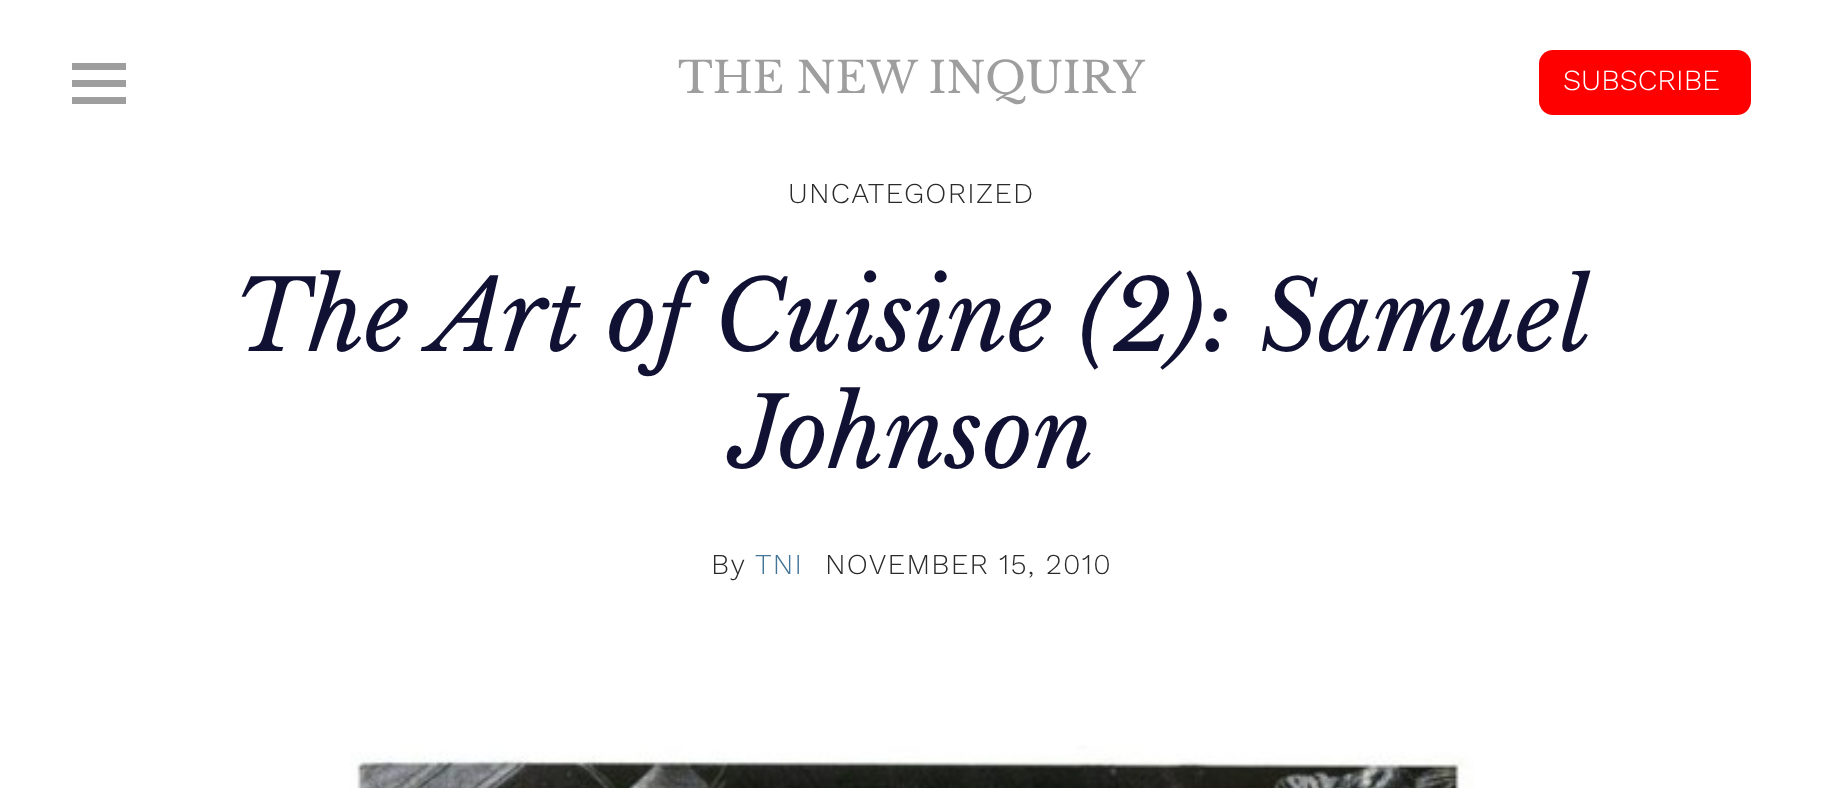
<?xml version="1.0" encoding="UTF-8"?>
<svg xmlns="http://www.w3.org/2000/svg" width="1822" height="788">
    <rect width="100%" height="100%" fill="#FFFFFF"/>
    <path d="M 72 104 V 97 H 126 V 104 Z M 72 63 H 126 V 70 H 72 Z M 72 87 V 80 H 126 V 87 Z" fill="#9E9E9E"/>
    <text x="678" y="93" font-family="Libre Baskerville" font-size="43.25" fill="#9E9E9E">THE NEW INQUIRY</text>
    <rect x="1539" y="50" width="212" height="65" rx="14" fill="#FF0000"/>
    <text x="1563" y="90" font-family="Work Sans" font-size="29.25" font-weight="300" fill="#FFFFFF">SUBSCRIBE</text>
    <text x="788" y="203" font-family="Work Sans" font-size="28.75" font-weight="300" letter-spacing="1.25" fill="#2A2A2A">UNCATEGORIZED</text>
    <text x="234" y="351" font-family="Libre Baskerville" font-size="97.25" font-style="italic" fill="#111133">The Art of Cuisine (2): Samuel</text>
    <text x="729" y="468" font-family="Libre Baskerville" font-size="97.25" font-style="italic" fill="#111133">Johnson</text>
    <text x="711" y="574" font-family="Work Sans" font-size="28.75" font-weight="300" letter-spacing="1.25" fill="#2A2A2A">By</text>
    <text x="755" y="574" font-family="Work Sans" font-size="28.75" font-weight="300" letter-spacing="1.25" fill="#437599">TNI</text>
    <text x="825" y="574" font-family="Work Sans" font-size="28.75" font-weight="300" letter-spacing="1.25" fill="#2A2A2A">NOVEMBER 15, 2010</text>
    <image x="350" y="745" width="1124" height="43" href="img_01.png"/>
</svg>
